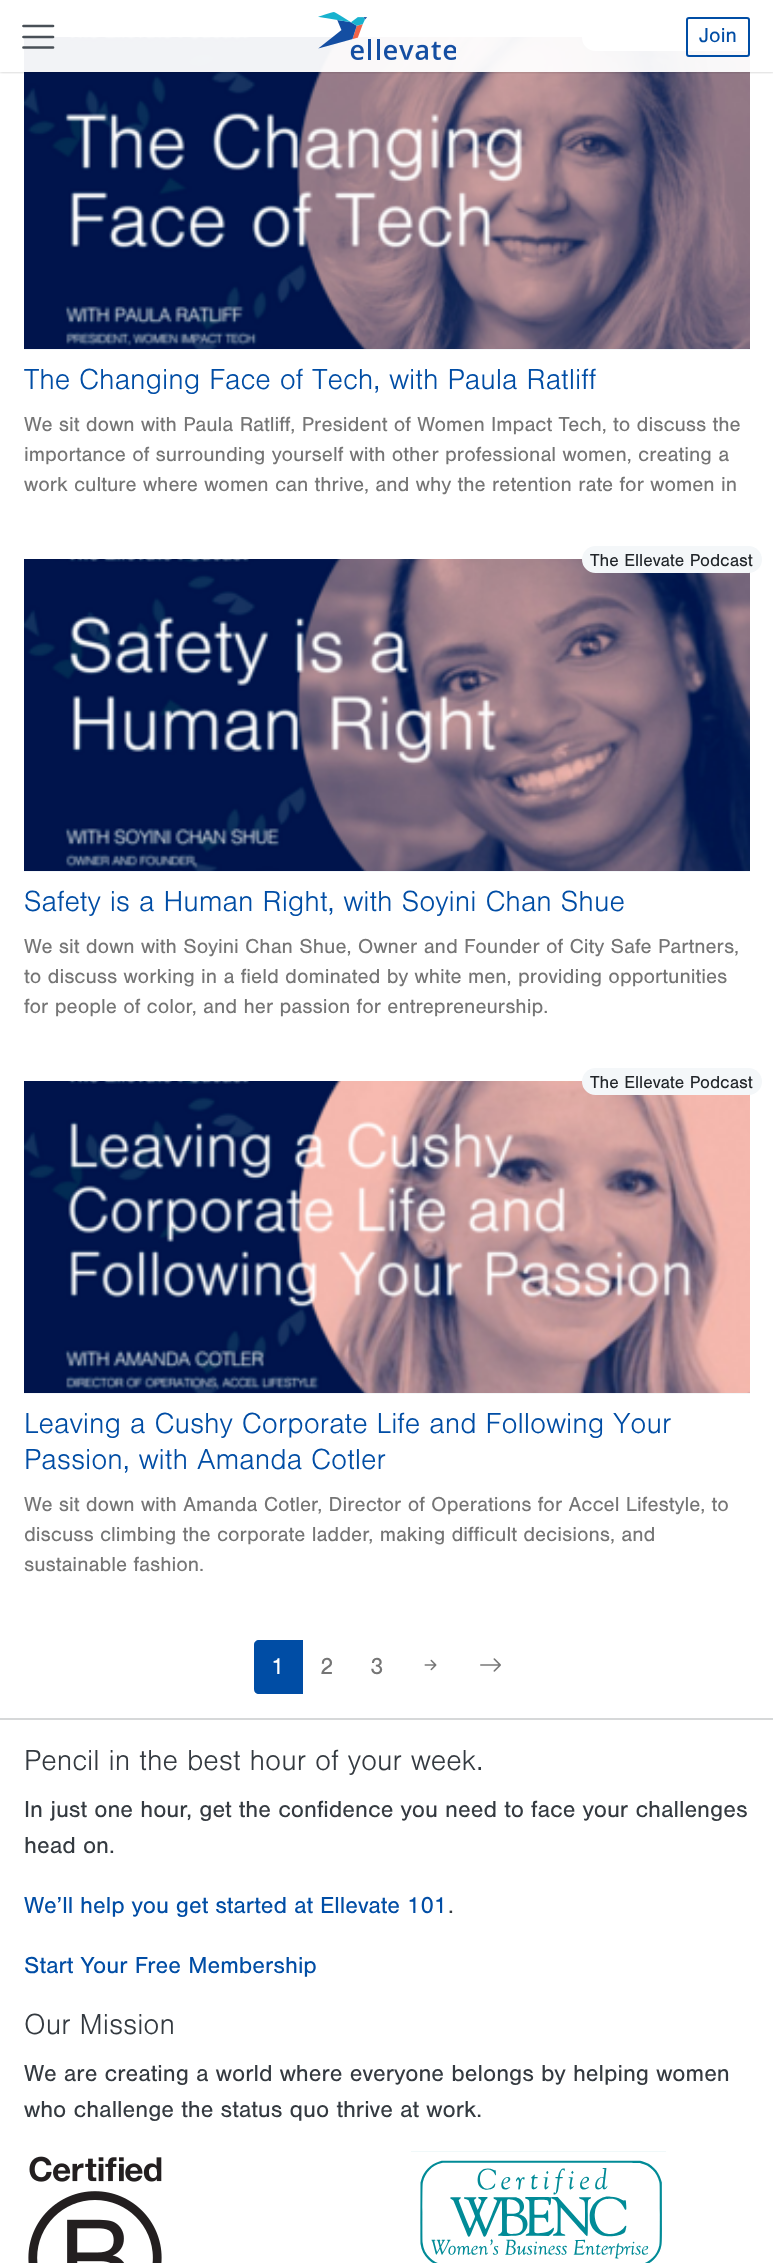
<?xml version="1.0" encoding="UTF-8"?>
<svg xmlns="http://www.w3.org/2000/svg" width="773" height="2263">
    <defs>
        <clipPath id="clip1"><rect x="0" y="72" width="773" height="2"/></clipPath>
        <filter id="blur1" x="-50%" y="-200%" width="200%" height="500%"><feGaussianBlur stdDeviation="1.5"/></filter>
    </defs>
    <rect width="100%" height="100%" fill="#FFFFFF"/>
    <image x="24" y="37" width="726" height="312" href="img_02.png"/>
    <rect x="582" y="24" width="180" height="27" rx="13.5" fill="#F4F7F9"/>
    <g clip-path="url(#clip1)">
        <rect x="0" y="0" width="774" height="72" fill="#000000" fill-opacity="0.25" filter="url(#blur1)"/>
    </g>
    <rect x="24" y="24" width="738" height="48" fill="#FFFFFF" fill-opacity="0.95"/>
    <path d="M 23.5 26 H 53 M 23.5 37 H 53 M 23.5 47.5 H 53" fill="none" stroke="#495057" stroke-width="2.7" stroke-linecap="round"/>
    <image x="318" y="12" width="138" height="48" href="img_01.png"/>
    <rect x="687" y="18" width="62" height="38" rx="2" fill="none" stroke="#004DA5" stroke-width="2"/>
    <text x="699" y="42" font-family="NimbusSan" font-size="21" fill="#004DA5">Join</text>
    <rect x="24" y="349" width="726" height="1" fill="#F4F7F9"/>
    <text x="24" y="389" font-family="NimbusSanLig" font-size="30" fill="#004DA5">The Changing Face of Tech, with Paula Ratliff</text>
    <text font-family="NimbusSan" font-size="21" fill="#757575">
        <tspan x="24" y="431">We sit down with Paula Ratliff, President of Women Impact Tech, to discuss the</tspan>
        <tspan x="24" y="461">importance of surrounding yourself with other professional women, creating a</tspan>
        <tspan x="24" y="491">work culture where women can thrive, and why the retention rate for women in</tspan>
    </text>
    <image x="24" y="559" width="726" height="312" href="img_03.png"/>
    <rect x="582" y="546" width="180" height="27" rx="13.5" fill="#F4F7F9"/>
    <text x="590" y="566" font-family="NimbusSan" font-size="18" fill="#212529">The Ellevate Podcast</text>
    <rect x="24" y="871" width="726" height="1" fill="#F4F7F9"/>
    <text x="24" y="911" font-family="NimbusSanLig" font-size="30" fill="#004DA5">Safety is a Human Right, with Soyini Chan Shue</text>
    <text font-family="NimbusSan" font-size="21" fill="#757575">
        <tspan x="24" y="953">We sit down with Soyini Chan Shue, Owner and Founder of City Safe Partners,</tspan>
        <tspan x="24" y="983">to discuss working in a field dominated by white men, providing opportunities</tspan>
        <tspan x="24" y="1013">for people of color, and her passion for entrepreneurship.</tspan>
    </text>
    <image x="24" y="1081" width="726" height="312" href="img_04.png"/>
    <rect x="582" y="1068" width="180" height="27" rx="13.5" fill="#F4F7F9"/>
    <text x="590" y="1088" font-family="NimbusSan" font-size="18" fill="#212529">The Ellevate Podcast</text>
    <rect x="24" y="1393" width="726" height="1" fill="#F4F7F9"/>
    <text font-family="NimbusSanLig" font-size="30" fill="#004DA5">
        <tspan x="24" y="1433">Leaving a Cushy Corporate Life and Following Your</tspan>
        <tspan x="24" y="1469">Passion, with Amanda Cotler</tspan>
    </text>
    <text font-family="NimbusSan" font-size="21" fill="#757575">
        <tspan x="24" y="1511">We sit down with Amanda Cotler, Director of Operations for Accel Lifestyle, to</tspan>
        <tspan x="24" y="1541">discuss climbing the corporate ladder, making difficult decisions, and</tspan>
        <tspan x="24" y="1571">sustainable fashion.</tspan>
    </text>
    <path d="M 259 1640 H 303 V 1694 H 259 C 256 1694 254 1692 254 1689 V 1645 C 254 1642 256 1640 259 1640 Z" fill="#004DA5"/>
    <text x="271" y="1674" font-family="NimbusSan" font-size="24" fill="#FFFFFF">1</text>
    <text x="320" y="1674" font-family="NimbusSan" font-size="24" fill="#757575">2</text>
    <text x="370" y="1674" font-family="NimbusSan" font-size="24" fill="#757575">3</text>
    <image x="424" y="1659" width="13" height="12" href="img_05.png"/>
    <image x="480" y="1658" width="21" height="14" href="img_06.png"/>
    <rect x="0" y="1718" width="773" height="2" fill="#D6D8D9"/>
    <text x="24" y="1770" font-family="NimbusSanLig" font-size="30" fill="#343A40">Pencil in the best hour of your week.</text>
    <text font-family="NimbusSan" font-size="24" fill="#343A40">
        <tspan x="24" y="1817">In just one hour, get the confidence you need to face your challenges</tspan>
        <tspan x="24" y="1853">head on.</tspan>
    </text>
    <text x="24" y="1913" word-spacing="-0.25" font-family="NimbusSan" font-size="24" fill="#004DA5">We’ll help you get started at Ellevate 101</text>
    <text x="448" y="1913" font-family="NimbusSan" font-size="24" fill="#343A40">.</text>
    <text x="24" y="1973" font-family="NimbusSan" font-size="24" fill="#004DA5">Start Your Free Membership</text>
    <text x="24" y="2034" font-family="NimbusSanLig" font-size="30" fill="#343A40">Our Mission</text>
    <text font-family="NimbusSan" font-size="24" fill="#343A40">
        <tspan x="24" y="2081">We are creating a world where everyone belongs by helping women</tspan>
        <tspan x="24" y="2117">who challenge the status quo thrive at work.</tspan>
    </text>
    <image x="28" y="2156" width="134" height="107" href="img_07.png"/>
    <image x="411" y="2151" width="255" height="112" href="img_08.png"/>
</svg>
